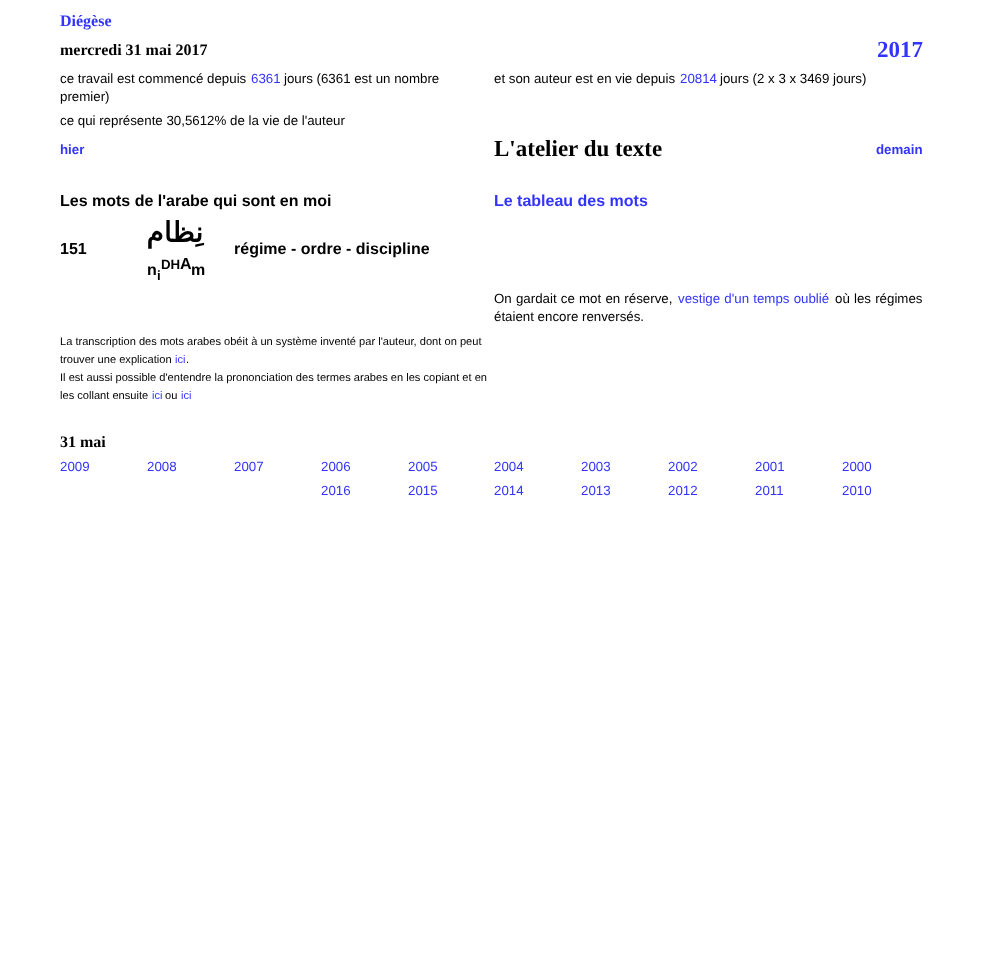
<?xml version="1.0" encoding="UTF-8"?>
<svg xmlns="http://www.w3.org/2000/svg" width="983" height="977">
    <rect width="100%" height="100%" fill="#FFFFFF"/>
    <text x="60" y="26" font-family="Liberation Serif" font-size="16" font-weight="700" fill="#3333FF">Diégèse</text>
    <text x="60" y="55" font-family="Liberation Serif" font-size="16" font-weight="700" fill="#000000">mercredi 31 mai 2017</text>
    <text x="877" y="57" font-family="Liberation Serif" font-size="23" font-weight="700" fill="#3333FF">2017</text>
    <text x="60" y="83" font-family="Liberation Sans" font-size="13.3" fill="#000000">ce travail est commencé depuis</text>
    <text x="251" y="83" font-family="Liberation Sans" font-size="13.3" fill="#3333FF">6361</text>
    <text x="284" y="83" font-family="Liberation Sans" font-size="13.3" fill="#000000">jours (6361 est un nombre</text>
    <text x="60" y="101" font-family="Liberation Sans" font-size="13.3" fill="#000000">premier)</text>
    <text x="494" y="83" font-family="Liberation Sans" font-size="13.3" fill="#000000">et son auteur est en vie depuis</text>
    <text x="680" y="83" font-family="Liberation Sans" font-size="13.3" fill="#3333FF">20814</text>
    <text x="720" y="83" font-family="Liberation Sans" font-size="13.3" fill="#000000">jours (2 x 3 x 3469 jours)</text>
    <text x="60" y="125" font-family="Liberation Sans" font-size="13.3" fill="#000000">ce qui représente 30,5612% de la vie de l'auteur</text>
    <text x="60" y="154" font-family="Liberation Sans" font-size="13.3" font-weight="700" fill="#3333FF">hier</text>
    <text x="494" y="156" font-family="Liberation Serif" font-size="23" font-weight="700" fill="#000000">L'atelier du texte</text>
    <text x="876" y="154" font-family="Liberation Sans" font-size="13.3" font-weight="700" fill="#3333FF">demain</text>
    <text x="60" y="206" font-family="Liberation Sans" font-size="16" font-weight="700" fill="#000000">Les mots de l'arabe qui sont en moi</text>
    <text x="494" y="206" font-family="Liberation Sans" font-size="16" font-weight="700" fill="#3333FF">Le tableau des mots</text>
    <text x="60" y="254" font-family="Liberation Sans" font-size="16" font-weight="700" fill="#000000">151</text>
    <text x="203" y="242" font-family="DejaVu Sans" font-size="28" font-weight="700" direction="rtl" fill="#000000">نِظام</text>
    <text x="234" y="254" font-family="Liberation Sans" font-size="16" font-weight="700" fill="#000000">régime - ordre - discipline</text>
    <text x="161" y="269" font-family="Liberation Sans" font-size="13.3" font-weight="700" fill="#000000">DH</text>
    <text x="180" y="269" font-family="Liberation Sans" font-size="16" font-weight="700" fill="#000000">A</text>
    <text x="147" y="275" font-family="Liberation Sans" font-size="16" font-weight="700" fill="#000000">n</text>
    <text x="157" y="280" font-family="Liberation Sans" font-size="13.3" font-weight="700" fill="#000000">i</text>
    <text x="191" y="275" font-family="Liberation Sans" font-size="16" font-weight="700" fill="#000000">m</text>
    <text x="494" y="303" word-spacing="0.5" font-family="Liberation Sans" font-size="13.3" fill="#000000">On gardait ce mot en réserve,</text>
    <text x="678" y="303" word-spacing="0.5" font-family="Liberation Sans" font-size="13.3" fill="#3333FF">vestige d'un temps oublié</text>
    <text x="835" y="303" word-spacing="0.5" font-family="Liberation Sans" font-size="13.3" fill="#000000">où les régimes</text>
    <text x="494" y="321" font-family="Liberation Sans" font-size="13.3" fill="#000000">étaient encore renversés.</text>
    <text font-family="Liberation Sans" font-size="11.1" fill="#000000">
        <tspan x="60" y="345">La transcription des mots arabes obéit à un système inventé par l'auteur, dont on peut</tspan>
        <tspan x="60" y="363">trouver une explication</tspan>
    </text>
    <text x="175" y="363" font-family="Liberation Sans" font-size="11.1" fill="#3333FF">ici</text>
    <text x="186" y="363" font-family="Liberation Sans" font-size="11.1" fill="#000000">.</text>
    <text font-family="Liberation Sans" font-size="11.1" fill="#000000">
        <tspan x="60" y="381">Il est aussi possible d'entendre la prononciation des termes arabes en les copiant et en</tspan>
        <tspan x="60" y="399">les collant ensuite</tspan>
    </text>
    <text x="152" y="399" font-family="Liberation Sans" font-size="11.1" fill="#3333FF">ici</text>
    <text x="165" y="399" font-family="Liberation Sans" font-size="11.1" fill="#000000">ou</text>
    <text x="181" y="399" font-family="Liberation Sans" font-size="11.1" fill="#3333FF">ici</text>
    <text x="60" y="447" font-family="Liberation Serif" font-size="16" font-weight="700" fill="#000000">31 mai</text>
    <text x="60" y="471" font-family="Liberation Sans" font-size="13.3" fill="#3333FF">2009</text>
    <text x="147" y="471" font-family="Liberation Sans" font-size="13.3" fill="#3333FF">2008</text>
    <text x="234" y="471" font-family="Liberation Sans" font-size="13.3" fill="#3333FF">2007</text>
    <text x="321" y="471" font-family="Liberation Sans" font-size="13.3" fill="#3333FF">2006</text>
    <text x="408" y="471" font-family="Liberation Sans" font-size="13.3" fill="#3333FF">2005</text>
    <text x="494" y="471" font-family="Liberation Sans" font-size="13.3" fill="#3333FF">2004</text>
    <text x="581" y="471" font-family="Liberation Sans" font-size="13.3" fill="#3333FF">2003</text>
    <text x="668" y="471" font-family="Liberation Sans" font-size="13.3" fill="#3333FF">2002</text>
    <text x="755" y="471" font-family="Liberation Sans" font-size="13.3" fill="#3333FF">2001</text>
    <text x="842" y="471" font-family="Liberation Sans" font-size="13.3" fill="#3333FF">2000</text>
    <text x="321" y="495" font-family="Liberation Sans" font-size="13.3" fill="#3333FF">2016</text>
    <text x="408" y="495" font-family="Liberation Sans" font-size="13.3" fill="#3333FF">2015</text>
    <text x="494" y="495" font-family="Liberation Sans" font-size="13.3" fill="#3333FF">2014</text>
    <text x="581" y="495" font-family="Liberation Sans" font-size="13.3" fill="#3333FF">2013</text>
    <text x="668" y="495" font-family="Liberation Sans" font-size="13.3" fill="#3333FF">2012</text>
    <text x="755" y="495" font-family="Liberation Sans" font-size="13.3" fill="#3333FF">2011</text>
    <text x="842" y="495" font-family="Liberation Sans" font-size="13.3" fill="#3333FF">2010</text>
</svg>
